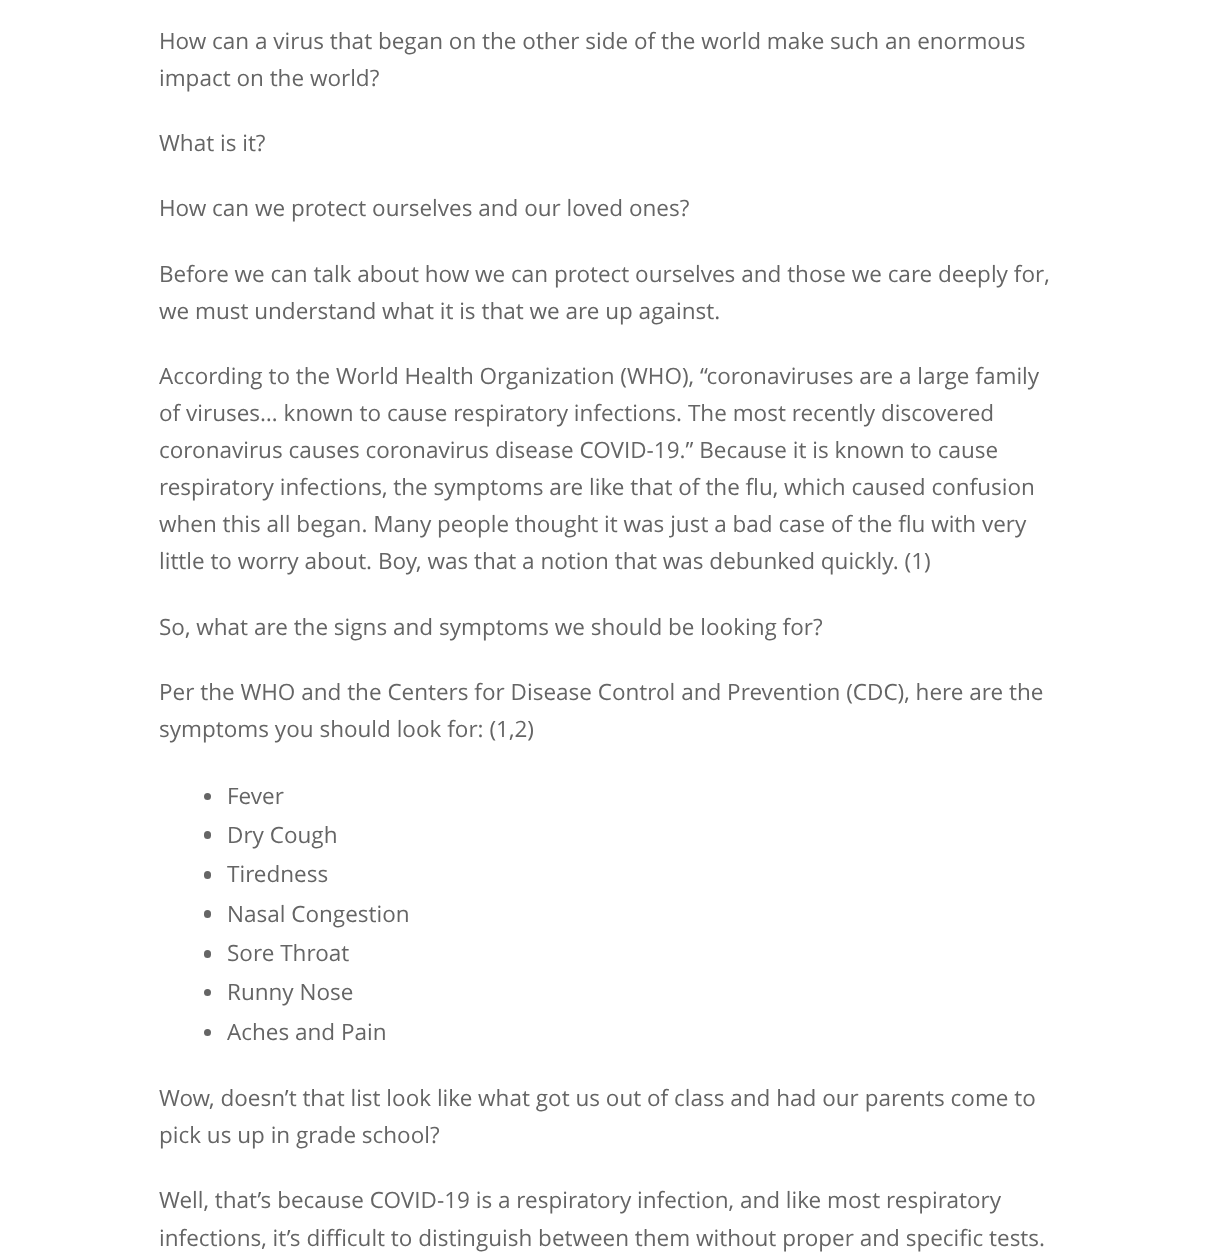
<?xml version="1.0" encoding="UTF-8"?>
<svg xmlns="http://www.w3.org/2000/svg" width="1217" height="1258">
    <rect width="100%" height="100%" fill="#FFFFFF"/>
    <text font-family="Open Sans" font-size="22.5" fill="#656565">
        <tspan x="159" y="49">How can a virus that began on the other side of the world make such an enormous</tspan>
        <tspan x="159" y="86">impact on the world?</tspan>
    </text>
    <text x="159" y="151" font-family="Open Sans" font-size="22.5" fill="#656565">What is it?</text>
    <text x="159" y="216" font-family="Open Sans" font-size="22.5" fill="#656565">How can we protect ourselves and our loved ones?</text>
    <text font-family="Open Sans" font-size="22.5" fill="#656565">
        <tspan x="159" y="282">Before we can talk about how we can protect ourselves and those we care deeply for,</tspan>
        <tspan x="159" y="319">we must understand what it is that we are up against.</tspan>
    </text>
    <text font-family="Open Sans" font-size="22.5" fill="#656565">
        <tspan x="159" y="384">According to the World Health Organization (WHO), “coronaviruses are a large family</tspan>
        <tspan x="159" y="421">of viruses… known to cause respiratory infections. The most recently discovered</tspan>
        <tspan x="159" y="458">coronavirus causes coronavirus disease COVID-19.” Because it is known to cause</tspan>
        <tspan x="159" y="495">respiratory infections, the symptoms are like that of the flu, which caused confusion</tspan>
        <tspan x="159" y="532">when this all began. Many people thought it was just a bad case of the flu with very</tspan>
        <tspan x="159" y="569">little to worry about. Boy, was that a notion that was debunked quickly. (1)</tspan>
    </text>
    <text x="159" y="635" font-family="Open Sans" font-size="22.5" fill="#656565">So, what are the signs and symptoms we should be looking for?</text>
    <text font-family="Open Sans" font-size="22.5" fill="#656565">
        <tspan x="159" y="700">Per the WHO and the Centers for Disease Control and Prevention (CDC), here are the</tspan>
        <tspan x="159" y="737">symptoms you should look for: (1,2)</tspan>
    </text>
    <circle cx="207.5" cy="796.5" r="3.5" fill="#656565"/>
    <text x="227" y="804" font-family="Open Sans" font-size="22.5" fill="#656565">Fever</text>
    <rect x="204" y="831" width="7" height="8" rx="3.5" fill="#656565"/>
    <text x="227" y="843" font-family="Open Sans" font-size="22.5" fill="#656565">Dry Cough</text>
    <rect x="204" y="871" width="7" height="8" rx="3.5" fill="#656565"/>
    <text x="227" y="882" font-family="Open Sans" font-size="22.5" fill="#656565">Tiredness</text>
    <rect x="204" y="910" width="7" height="8" rx="3.5" fill="#656565"/>
    <text x="227" y="922" font-family="Open Sans" font-size="22.5" fill="#656565">Nasal Congestion</text>
    <rect x="204" y="950" width="7" height="8" rx="3.5" fill="#656565"/>
    <text x="227" y="961" font-family="Open Sans" font-size="22.5" fill="#656565">Sore Throat</text>
    <circle cx="207.5" cy="992.5" r="3.5" fill="#656565"/>
    <text x="227" y="1000" font-family="Open Sans" font-size="22.5" fill="#656565">Runny Nose</text>
    <circle cx="207.5" cy="1032.5" r="3.5" fill="#656565"/>
    <text x="227" y="1040" font-family="Open Sans" font-size="22.5" fill="#656565">Aches and Pain</text>
    <text font-family="Open Sans" font-size="22.5" fill="#656565">
        <tspan x="159" y="1106">Wow, doesn’t that list look like what got us out of class and had our parents come to</tspan>
        <tspan x="159" y="1143">pick us up in grade school?</tspan>
    </text>
    <text font-family="Open Sans" font-size="22.5" fill="#656565">
        <tspan x="159" y="1208">Well, that’s because COVID-19 is a respiratory infection, and like most respiratory</tspan>
        <tspan x="159" y="1246">infections, it’s difficult to distinguish between them without proper and specific tests.</tspan>
    </text>
</svg>
